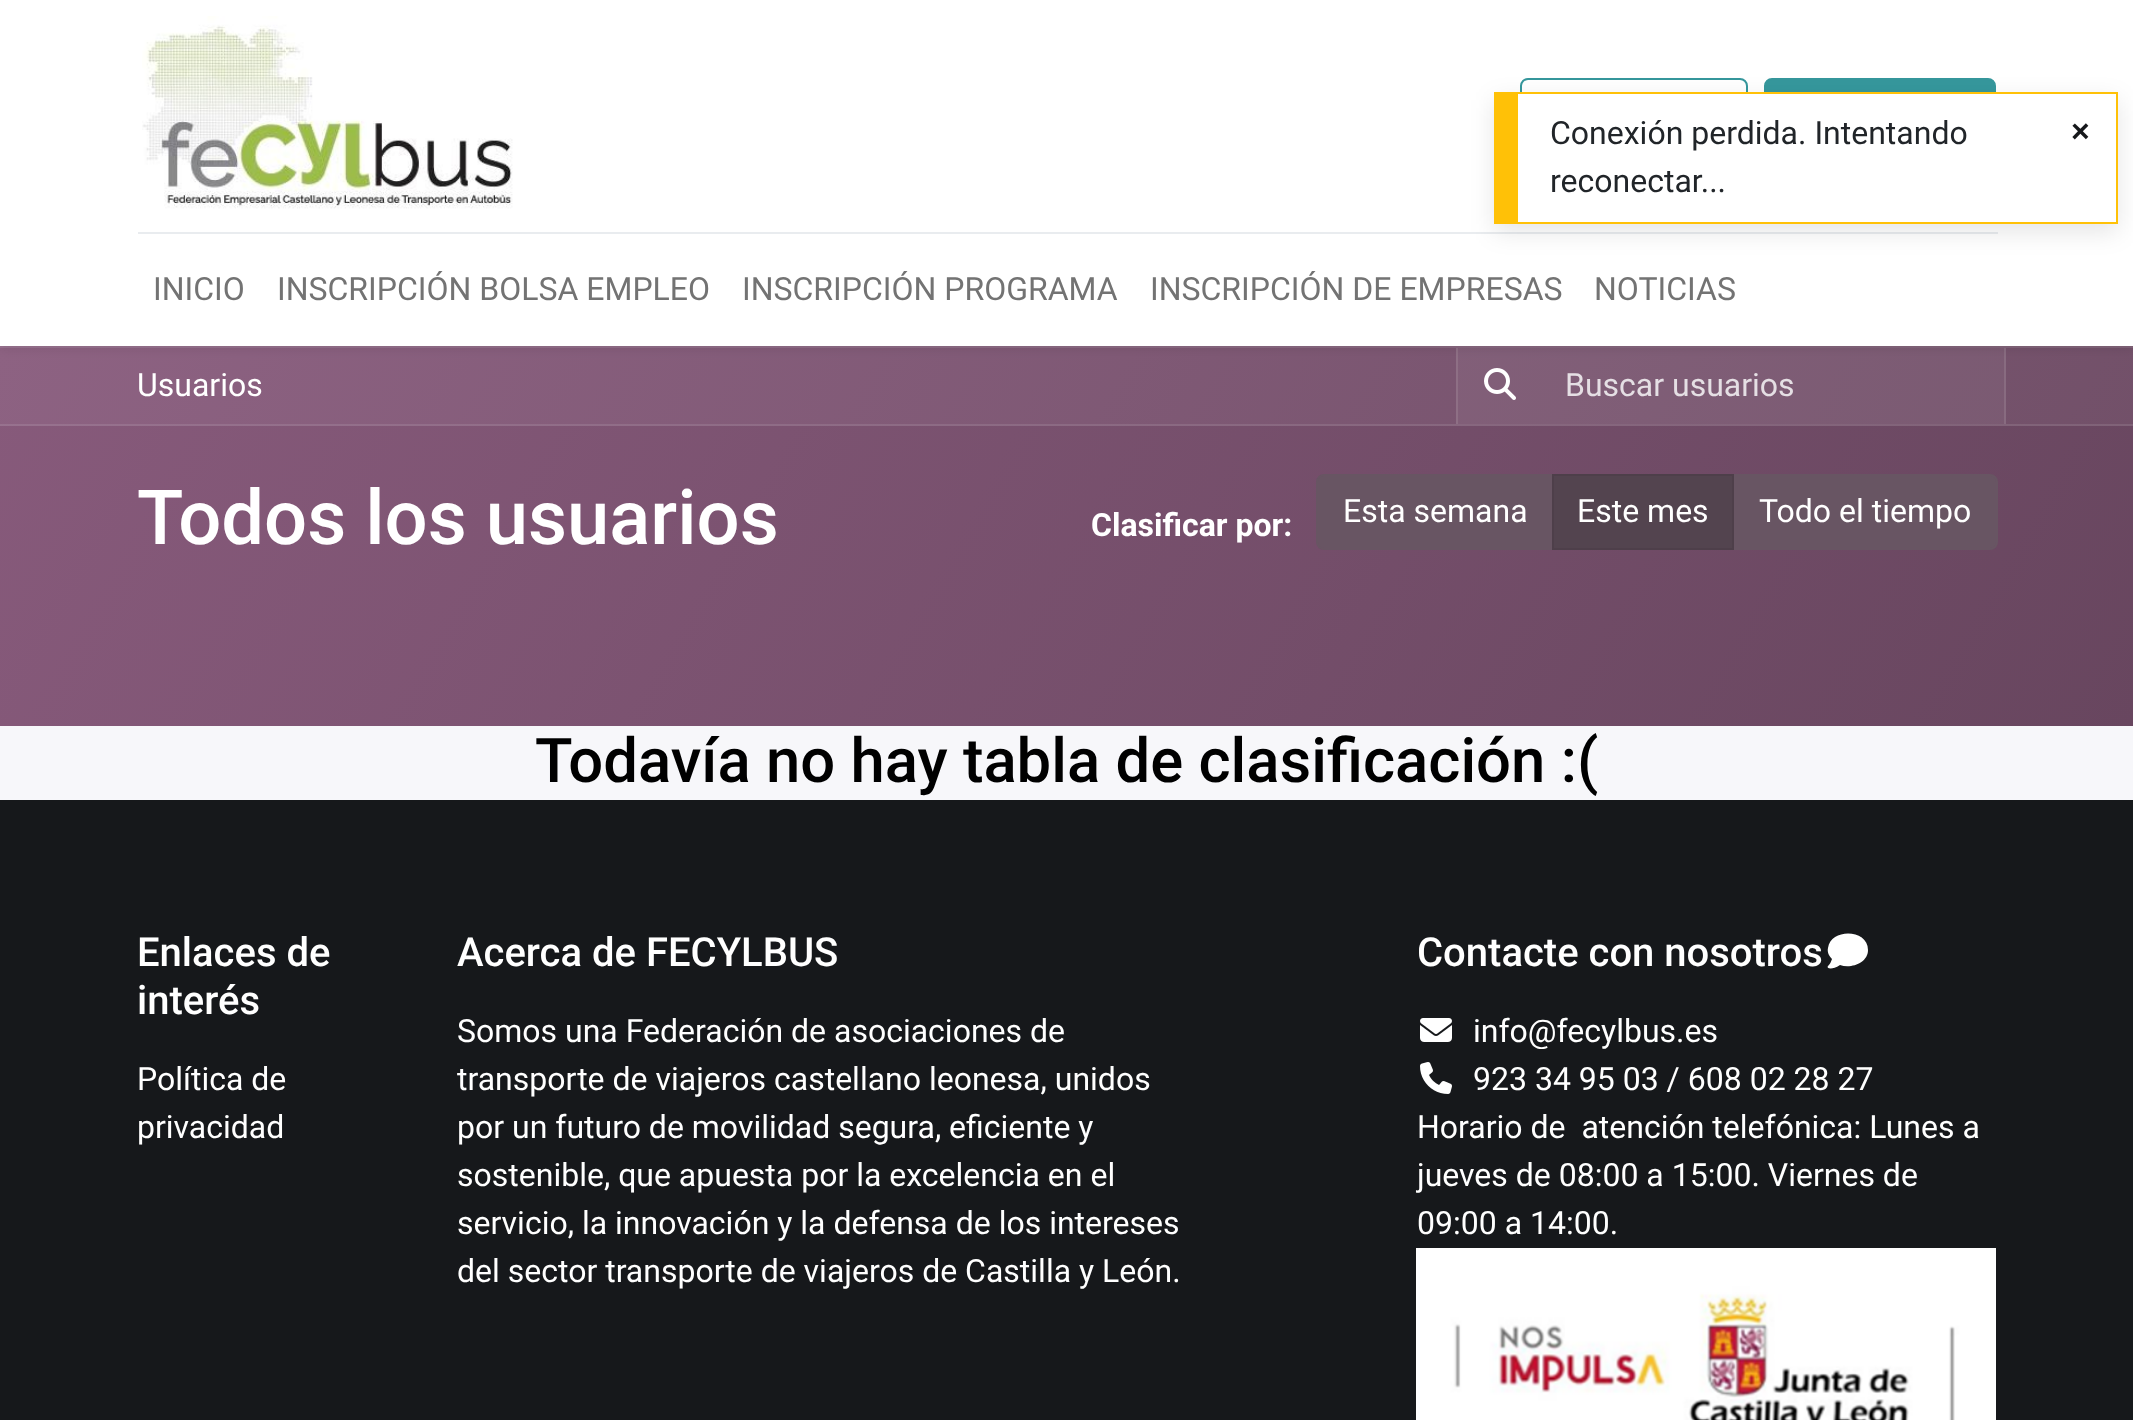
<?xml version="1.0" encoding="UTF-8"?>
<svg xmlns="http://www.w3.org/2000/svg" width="2133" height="1420">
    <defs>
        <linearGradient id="g1" gradientUnits="userSpaceOnUse" x1="184" y1="26" x2="1950" y2="1046"><stop offset="0" stop-color="#8D6282"/><stop offset="1" stop-color="#704F67"/></linearGradient>
        <linearGradient id="g2" gradientUnits="userSpaceOnUse" x1="184" y1="26" x2="1950" y2="1046"><stop offset="0" stop-color="#936A88"/><stop offset="1" stop-color="#77586F"/></linearGradient>
        <linearGradient id="g3" gradientUnits="userSpaceOnUse" x1="184" y1="26" x2="1950" y2="1046"><stop offset="0" stop-color="#98728F"/><stop offset="1" stop-color="#7E6176"/></linearGradient>
        <filter id="blur1" x="-50%" y="-200%" width="200%" height="500%"><feGaussianBlur stdDeviation="4"/></filter>
        <filter id="blur2" x="-50%" y="-200%" width="200%" height="500%"><feGaussianBlur stdDeviation="12"/></filter>
        <linearGradient id="g4" gradientUnits="userSpaceOnUse" x1="184" y1="26" x2="1950" y2="1046"><stop offset="0" stop-color="#875A7B"/><stop offset="1" stop-color="#68465F"/></linearGradient>
    </defs>
    <rect width="100%" height="100%" fill="#F7F7FA"/>
    <rect x="0" y="348" width="2133" height="76" fill="url(#g1)"/>
    <rect x="1458" y="348" width="546" height="76" fill="url(#g2)"/>
    <rect x="0" y="346" width="2133" height="2" fill="url(#g3)"/>
    <rect x="2004" y="348" width="2" height="76" fill="#886B80"/>
    <rect x="1456" y="348" width="2" height="76" fill="#8E6F85"/>
    <rect x="0" y="4" width="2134" height="346" fill="#000000" fill-opacity="0.07" filter="url(#blur1)"/>
    <rect x="0" y="0" width="2133" height="346" fill="#FFFFFF"/>
    <rect x="1521" y="79" width="226" height="74" rx="7" fill="none" stroke="#35979C" stroke-width="2"/>
    <rect x="1765" y="79" width="230" height="74" rx="7" fill="#35979C" stroke="#35979C" stroke-width="2"/>
    <rect x="138" y="232" width="1860" height="2" fill="#E9ECEF"/>
    <rect x="1494" y="100" width="624" height="132" fill="#000000" fill-opacity="0.1" filter="url(#blur2)"/>
    <rect x="1518" y="94" width="598" height="128" fill="#FFFFFF"/>
    <rect x="1518" y="92" width="600" height="2" fill="#FFC107"/>
    <rect x="2116" y="92" width="2" height="132" fill="#FFC107"/>
    <rect x="1518" y="222" width="600" height="2" fill="#FFC107"/>
    <rect x="1494" y="92" width="24" height="132" fill="#FFC107"/>
    <text font-family="Roboto" font-size="32" fill="#212529">
        <tspan x="1550" y="144">Conexión perdida. Intentando</tspan>
        <tspan x="1550" y="192">reconectar...</tspan>
    </text>
    <text x="2071" y="142" font-family="Liberation Sans" font-size="32" font-weight="700" fill="#16181B">×</text>
    <image x="142" y="16" width="371" height="193" href="img_01.png"/>
    <text x="153" y="300" font-family="Roboto" font-size="32" fill="#737373">INICIO</text>
    <text x="277" y="300" font-family="Roboto" font-size="32" fill="#737373">INSCRIPCIÓN BOLSA EMPLEO</text>
    <text x="742" y="300" font-family="Roboto" font-size="32" fill="#737373">INSCRIPCIÓN PROGRAMA</text>
    <text x="1150" y="300" font-family="Roboto" font-size="32" fill="#737373">INSCRIPCIÓN DE EMPRESAS</text>
    <text x="1594" y="300" font-family="Roboto" font-size="32" fill="#737373">NOTICIAS</text>
    <rect x="0" y="426" width="2133" height="300" fill="url(#g4)"/>
    <rect x="0" y="424" width="2133" height="2" fill="url(#g3)"/>
    <text x="137" y="396" font-family="Roboto" font-size="32" fill="#FFFFFF">Usuarios</text>
    <image x="1484" y="368" width="32" height="32" href="img_02.png"/>
    <text x="1565" y="396" font-family="Roboto" font-size="32" fill="#E5DFE4">Buscar usuarios</text>
    <text x="137" y="544" font-family="Roboto" font-size="76" font-weight="500" fill="#FFFFFF">Todos los usuarios</text>
    <text x="1091" y="536" font-family="Roboto" font-size="32" font-weight="700" fill="#FFFFFF">Clasificar por:</text>
    <path d="M 1324 475 H 1553 V 549 H 1324 C 1320 549 1317 546 1317 542 V 482 C 1317 478 1320 475 1324 475 Z" fill="#685563" stroke="#685563" stroke-width="2"/>
    <text x="1343" y="522" font-family="Roboto" font-size="32" fill="#FFFFFF">Esta semana</text>
    <path d="M 1733 475 H 1990 C 1994 475 1997 478 1997 482 V 542 C 1997 546 1994 549 1990 549 H 1733 Z" fill="#685563" stroke="#685563" stroke-width="2"/>
    <rect x="1553" y="475" width="180" height="74" fill="#53444F" stroke="#4E3F4A" stroke-width="2"/>
    <text x="1577" y="522" font-family="Roboto" font-size="32" fill="#FFFFFF">Este mes</text>
    <text x="1759" y="522" font-family="Roboto" font-size="32" fill="#FFFFFF">Todo el tiempo</text>
    <text x="535" y="782" font-family="Roboto" font-size="61.6" font-weight="500" fill="#000000">Todavía no hay tabla de clasificación :(</text>
    <rect x="0" y="800" width="2133" height="620" fill="#16181B"/>
    <text font-family="Roboto" font-size="40" font-weight="500" fill="#FFFFFF">
        <tspan x="137" y="966">Enlaces de</tspan>
        <tspan x="137" y="1014">interés</tspan>
    </text>
    <text font-family="Roboto" font-size="32" fill="#FFFFFF">
        <tspan x="137" y="1090">Política de</tspan>
        <tspan x="137" y="1138">privacidad</tspan>
    </text>
    <text x="457" y="966" font-family="Roboto" font-size="40" font-weight="500" fill="#FFFFFF">Acerca de FECYLBUS</text>
    <text font-family="Roboto" font-size="32" fill="#FFFFFF">
        <tspan x="457" y="1042">Somos una Federación de asociaciones de</tspan>
        <tspan x="457" y="1090">transporte de viajeros castellano leonesa, unidos</tspan>
        <tspan x="457" y="1138">por un futuro de movilidad segura, eficiente y</tspan>
        <tspan x="457" y="1186">sostenible, que apuesta por la excelencia en el</tspan>
        <tspan x="457" y="1234">servicio, la innovación y la defensa de los intereses</tspan>
        <tspan x="457" y="1282">del sector transporte de viajeros de Castilla y León.</tspan>
    </text>
    <text x="1417" y="966" font-family="Roboto" font-size="40" font-weight="500" fill="#FFFFFF">Contacte con nosotros</text>
    <path d="M 1868 950 C 1868 963 1851 969 1840 965 C 1831 971 1826 968 1828 966 C 1830 964 1831 962 1832 959 C 1829 956 1827 952 1828 948 C 1831 928 1868 929 1868 950 Z" fill="#FFFFFF"/>
    <image x="1420" y="1018" width="32" height="24" href="img_03.png"/>
    <text x="1473" y="1042" font-family="Roboto" font-size="32" fill="#FFFFFF">info@fecylbus.es</text>
    <image x="1420" y="1062" width="32" height="32" href="img_04.png"/>
    <text x="1473" y="1090" font-family="Roboto" font-size="32" fill="#FFFFFF">923 34 95 03 / 608 02 28 27</text>
    <text font-family="Roboto" font-size="32" fill="#FFFFFF" xml:space="preserve"><tspan x="1417" y="1138">Horario de  atención telefónica: Lunes a</tspan><tspan x="1417" y="1186">jueves de 08:00 a 15:00. Viernes de</tspan><tspan x="1417" y="1234">09:00 a 14:00.</tspan></text>
    <image x="1416" y="1248" width="580" height="172" href="img_05.png"/>
</svg>
